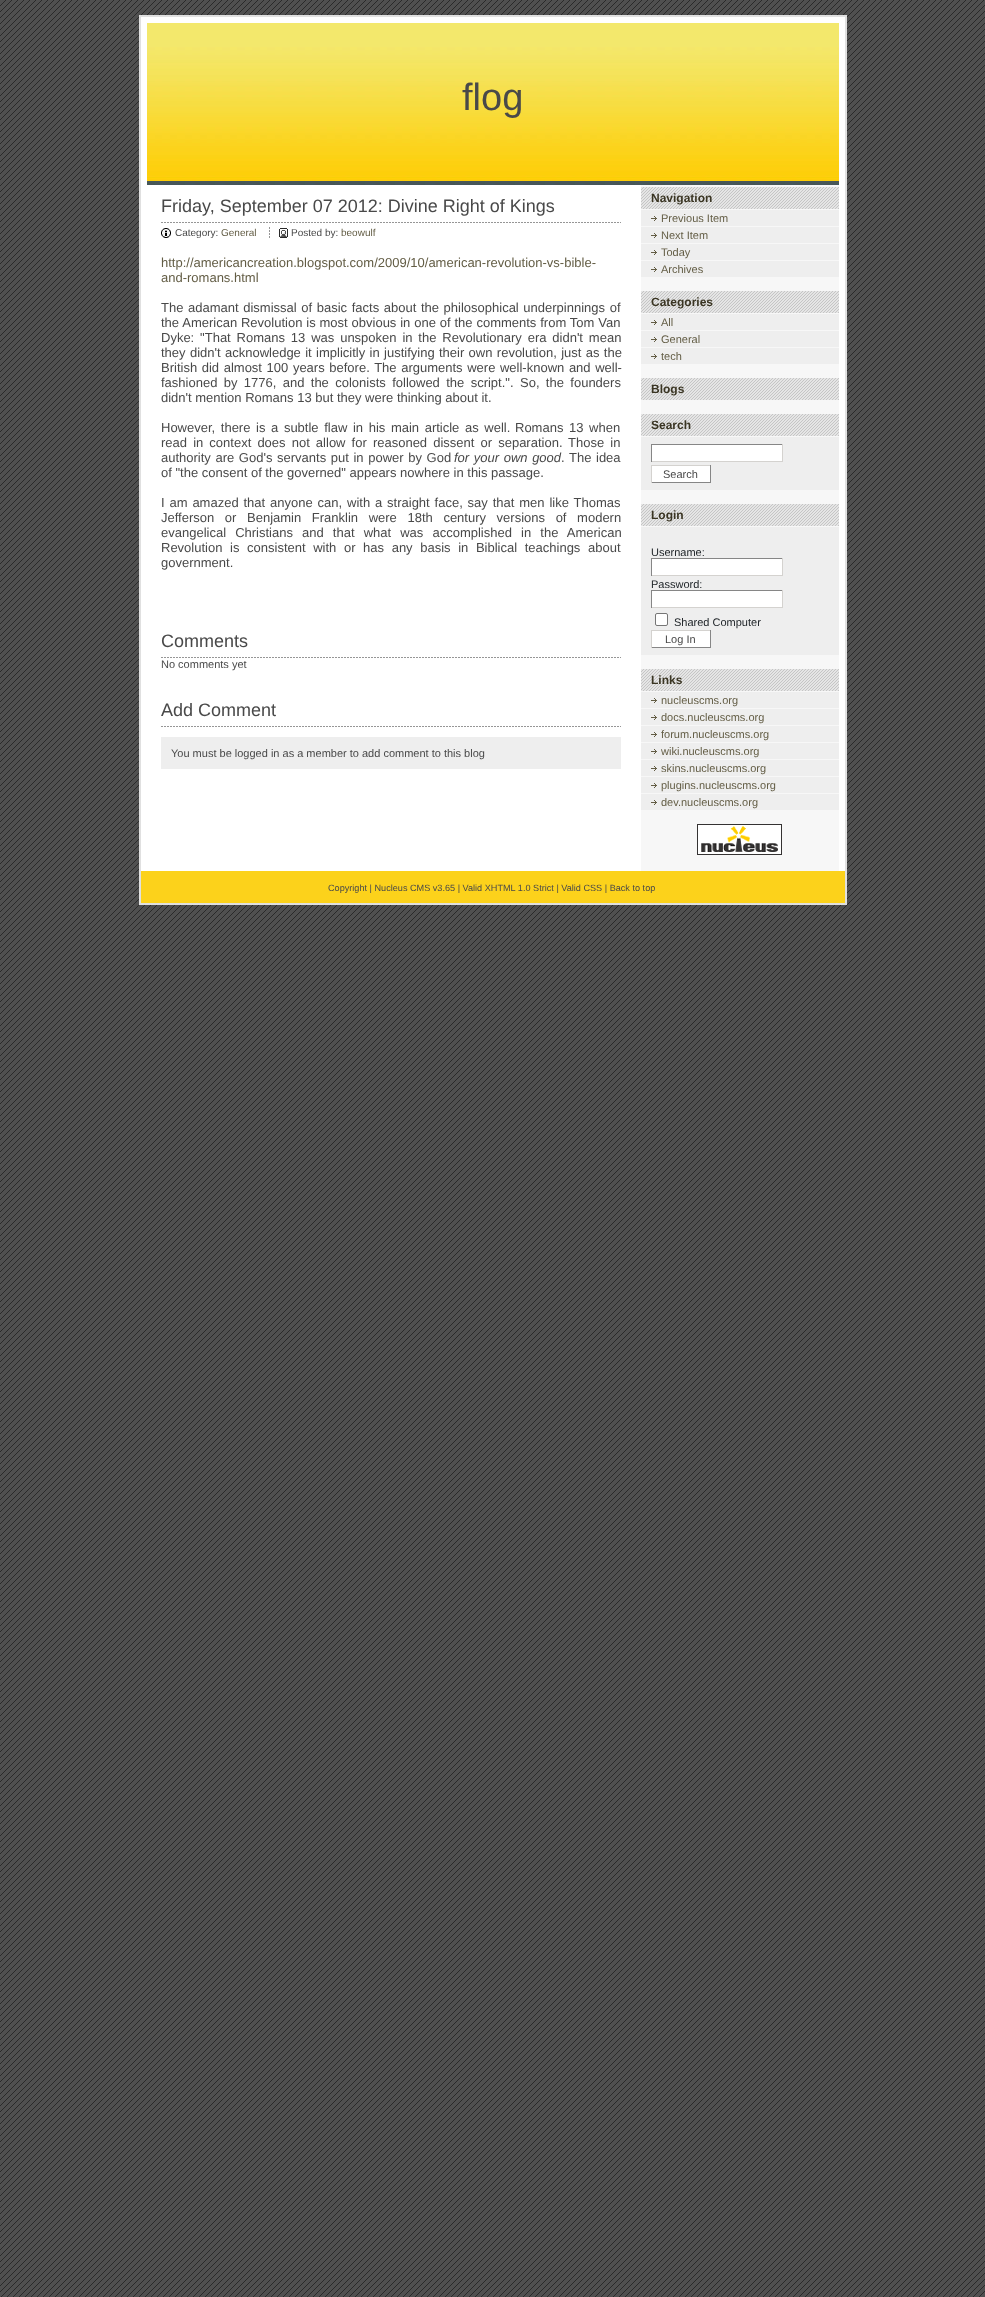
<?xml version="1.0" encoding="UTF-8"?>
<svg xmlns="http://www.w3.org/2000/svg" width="985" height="2297">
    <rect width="100%" height="100%" fill="#FFFFFF"/>
    <image x="0" y="0" width="985" height="2297" href="img_01.png"/>
    <rect x="139" y="15" width="708" height="2" fill="#E0E0E0"/>
    <rect x="845" y="15" width="2" height="170" fill="#E0E0E0"/>
    <rect x="139" y="15" width="2" height="170" fill="#E0E0E0"/>
    <rect x="141" y="17" width="704" height="854" fill="#FFFFFF"/>
    <image x="147" y="23" width="692" height="162" href="img_02.png"/>
    <text x="462" y="110" font-family="Liberation Sans" font-size="38" fill="#494949">flog</text>
    <rect x="845" y="185" width="2" height="720" fill="#E0E0E0"/>
    <rect x="139" y="185" width="2" height="686" fill="#E0E0E0"/>
    <rect x="641" y="185" width="198" height="686" fill="#F7F7F7"/>
    <image x="161" y="222" width="460" height="1" href="img_03.png"/>
    <text x="161" y="212" font-family="Liberation Sans" font-size="18" fill="#494949">Friday, September 07 2012: Divine Right of Kings</text>
    <image x="161" y="228" width="10" height="10" href="img_04.png"/>
    <text x="175" y="236" font-family="Liberation Sans" font-size="10" fill="#494949">Category:</text>
    <text x="221" y="236" font-family="Liberation Sans" font-size="10" fill="#635D45">General</text>
    <image x="269" y="227" width="1" height="11" href="img_05.png"/>
    <image x="279" y="228" width="9" height="10" href="img_06.png"/>
    <text x="291" y="236" font-family="Liberation Sans" font-size="10" fill="#494949">Posted by:</text>
    <text x="341" y="236" font-family="Liberation Sans" font-size="10" fill="#635D45">beowulf</text>
    <text font-family="Liberation Sans" font-size="13" fill="#635D45">
        <tspan x="161" y="267">http://americancreation.blogspot.com/2009/10/american-revolution-vs-bible-</tspan>
        <tspan x="161" y="282">and-romans.html</tspan>
    </text>
    <text font-family="Liberation Sans" font-size="13" fill="#494949">
        <tspan x="161" y="312" word-spacing="1">The adamant dismissal of basic facts about the philosophical underpinnings of</tspan>
        <tspan x="161" y="327" word-spacing="0.25">the American Revolution is most obvious in one of the comments from Tom Van</tspan>
        <tspan x="161" y="342" word-spacing="2.25">Dyke: "That Romans 13 was unspoken in the Revolutionary era didn't mean</tspan>
        <tspan x="161" y="357" word-spacing="0.75">they didn't acknowledge it implicitly in justifying their own revolution, just as the</tspan>
        <tspan x="161" y="372" word-spacing="1">British did almost 100 years before. The arguments were well-known and well-</tspan>
        <tspan x="161" y="387" word-spacing="2.75">fashioned by 1776, and the colonists followed the script.".</tspan>
    </text>
    <text x="520" y="387" word-spacing="2.75" font-family="Liberation Sans" font-size="13" fill="#494949">So, the founders</text>
    <text x="161" y="402" font-family="Liberation Sans" font-size="13" fill="#494949">didn't mention Romans 13 but they were thinking about it.</text>
    <text x="161" y="432" word-spacing="2" font-family="Liberation Sans" font-size="13" fill="#494949">However, there is a subtle flaw in his main article as well.</text>
    <text x="515" y="432" word-spacing="2" font-family="Liberation Sans" font-size="13" fill="#494949">Romans 13 when</text>
    <text x="161" y="447" word-spacing="2.5" font-family="Liberation Sans" font-size="13" fill="#494949">read in context does not allow for reasoned dissent or separation.</text>
    <text x="568" y="447" word-spacing="2.5" font-family="Liberation Sans" font-size="13" fill="#494949">Those in</text>
    <text x="161" y="462" word-spacing="1" font-family="Liberation Sans" font-size="13" fill="#494949">authority are God's servants put in power by God</text>
    <text x="454" y="462" word-spacing="1" font-family="Liberation Sans" font-size="13" font-style="italic" fill="#494949">for your own good</text>
    <text x="561" y="462" word-spacing="1" font-family="Liberation Sans" font-size="13" fill="#494949">. The idea</text>
    <text x="161" y="477" font-family="Liberation Sans" font-size="13" fill="#494949">of "the consent of the governed" appears nowhere in this passage.</text>
    <text font-family="Liberation Sans" font-size="13" fill="#494949">
        <tspan x="161" y="507" word-spacing="1.25">I am amazed that anyone can, with a straight face, say that men like Thomas</tspan>
        <tspan x="161" y="522" word-spacing="7">Jefferson or Benjamin Franklin were 18th century versions of modern</tspan>
        <tspan x="161" y="537" word-spacing="5.5">evangelical Christians and that what was accomplished in the American</tspan>
        <tspan x="161" y="552" word-spacing="4">Revolution is consistent with or has any basis in Biblical teachings about</tspan>
        <tspan x="161" y="567">government.</tspan>
    </text>
    <image x="161" y="657" width="460" height="1" href="img_03.png"/>
    <text x="161" y="647" font-family="Liberation Sans" font-size="18" fill="#494949">Comments</text>
    <text x="161" y="668" font-family="Liberation Sans" font-size="11" fill="#494949">No comments yet</text>
    <image x="161" y="726" width="460" height="1" href="img_03.png"/>
    <text x="161" y="716" font-family="Liberation Sans" font-size="18" fill="#494949">Add Comment</text>
    <rect x="161" y="737" width="460" height="32" fill="#EEEEEE"/>
    <text x="171" y="757" font-family="Liberation Sans" font-size="11" fill="#494949">You must be logged in as a member to add comment to this blog</text>
    <rect x="641" y="187" width="198" height="22" fill="#E5E5E5"/>
    <image x="641" y="187" width="198" height="22" href="img_07.png"/>
    <text x="651" y="202" font-family="Liberation Sans" font-size="12" font-weight="700" fill="#3A3523">Navigation</text>
    <rect x="641" y="210" width="198" height="16" fill="#EEEEEE"/>
    <image x="651" y="216" width="6" height="5" href="img_08.png"/>
    <text x="661" y="222" font-family="Liberation Sans" font-size="11" fill="#635D45">Previous Item</text>
    <rect x="641" y="227" width="198" height="16" fill="#EEEEEE"/>
    <image x="651" y="233" width="6" height="5" href="img_08.png"/>
    <text x="661" y="239" font-family="Liberation Sans" font-size="11" fill="#635D45">Next Item</text>
    <rect x="641" y="244" width="198" height="16" fill="#EEEEEE"/>
    <image x="651" y="250" width="6" height="5" href="img_08.png"/>
    <text x="661" y="256" font-family="Liberation Sans" font-size="11" fill="#635D45">Today</text>
    <rect x="641" y="261" width="198" height="16" fill="#EEEEEE"/>
    <image x="651" y="267" width="6" height="5" href="img_08.png"/>
    <text x="661" y="273" font-family="Liberation Sans" font-size="11" fill="#635D45">Archives</text>
    <rect x="641" y="291" width="198" height="22" fill="#E5E5E5"/>
    <image x="641" y="291" width="198" height="22" href="img_07.png"/>
    <text x="651" y="306" font-family="Liberation Sans" font-size="12" font-weight="700" fill="#3A3523">Categories</text>
    <rect x="641" y="314" width="198" height="16" fill="#EEEEEE"/>
    <image x="651" y="320" width="6" height="5" href="img_08.png"/>
    <text x="661" y="326" font-family="Liberation Sans" font-size="11" fill="#635D45">All</text>
    <rect x="641" y="331" width="198" height="16" fill="#EEEEEE"/>
    <image x="651" y="337" width="6" height="5" href="img_08.png"/>
    <text x="661" y="343" font-family="Liberation Sans" font-size="11" fill="#635D45">General</text>
    <rect x="641" y="348" width="198" height="16" fill="#EEEEEE"/>
    <image x="651" y="354" width="6" height="5" href="img_08.png"/>
    <text x="661" y="360" font-family="Liberation Sans" font-size="11" fill="#635D45">tech</text>
    <rect x="641" y="378" width="198" height="22" fill="#E5E5E5"/>
    <image x="641" y="378" width="198" height="22" href="img_07.png"/>
    <text x="651" y="393" font-family="Liberation Sans" font-size="12" font-weight="700" fill="#3A3523">Blogs</text>
    <rect x="641" y="414" width="198" height="22" fill="#E5E5E5"/>
    <image x="641" y="414" width="198" height="22" href="img_07.png"/>
    <text x="651" y="429" font-family="Liberation Sans" font-size="12" font-weight="700" fill="#3A3523">Search</text>
    <rect x="641" y="437" width="198" height="53" fill="#EEEEEE"/>
    <rect x="652" y="445" width="130" height="16" fill="#FFFFFF"/>
    <rect x="651" y="444" width="132" height="1" fill="#868686"/>
    <rect x="782" y="444" width="1" height="18" fill="#D4D2CF"/>
    <rect x="651" y="461" width="132" height="1" fill="#D4D2CF"/>
    <rect x="651" y="444" width="1" height="18" fill="#868686"/>
    <rect x="652" y="466" width="58" height="16" fill="#FFFFFF"/>
    <rect x="651" y="465" width="60" height="1" fill="#D4D2CF"/>
    <rect x="710" y="465" width="1" height="18" fill="#868686"/>
    <rect x="651" y="482" width="60" height="1" fill="#868686"/>
    <rect x="651" y="465" width="1" height="18" fill="#D4D2CF"/>
    <text x="663" y="478" font-family="Liberation Sans" font-size="11" fill="#494949">Search</text>
    <rect x="641" y="504" width="198" height="22" fill="#E5E5E5"/>
    <image x="641" y="504" width="198" height="22" href="img_07.png"/>
    <text x="651" y="519" font-family="Liberation Sans" font-size="12" font-weight="700" fill="#3A3523">Login</text>
    <rect x="641" y="527" width="198" height="128" fill="#EEEEEE"/>
    <text x="651" y="556" font-family="Liberation Sans" font-size="11" fill="#21262A">Username:</text>
    <rect x="652" y="559" width="130" height="16" fill="#FFFFFF"/>
    <rect x="651" y="558" width="132" height="1" fill="#868686"/>
    <rect x="782" y="558" width="1" height="18" fill="#D4D2CF"/>
    <rect x="651" y="575" width="132" height="1" fill="#D4D2CF"/>
    <rect x="651" y="558" width="1" height="18" fill="#868686"/>
    <text x="651" y="588" font-family="Liberation Sans" font-size="11" fill="#21262A">Password:</text>
    <rect x="652" y="591" width="130" height="16" fill="#FFFFFF"/>
    <rect x="651" y="590" width="132" height="1" fill="#868686"/>
    <rect x="782" y="590" width="1" height="18" fill="#D4D2CF"/>
    <rect x="651" y="607" width="132" height="1" fill="#D4D2CF"/>
    <rect x="651" y="590" width="1" height="18" fill="#868686"/>
    <rect x="655.5" y="613.5" width="12" height="12" rx="1.5" fill="#FFFFFF" stroke="#767676"/>
    <text x="674" y="626" font-family="Liberation Sans" font-size="11" fill="#21262A">Shared Computer</text>
    <rect x="652" y="631" width="58" height="16" fill="#FFFFFF"/>
    <rect x="651" y="630" width="60" height="1" fill="#D4D2CF"/>
    <rect x="710" y="630" width="1" height="18" fill="#868686"/>
    <rect x="651" y="647" width="60" height="1" fill="#868686"/>
    <rect x="651" y="630" width="1" height="18" fill="#D4D2CF"/>
    <text x="665" y="643" font-family="Liberation Sans" font-size="11" fill="#494949">Log In</text>
    <rect x="641" y="669" width="198" height="22" fill="#E5E5E5"/>
    <image x="641" y="669" width="198" height="22" href="img_07.png"/>
    <text x="651" y="684" font-family="Liberation Sans" font-size="12" font-weight="700" fill="#3A3523">Links</text>
    <rect x="641" y="692" width="198" height="16" fill="#EEEEEE"/>
    <image x="651" y="698" width="6" height="5" href="img_08.png"/>
    <text x="661" y="704" font-family="Liberation Sans" font-size="11" fill="#635D45">nucleuscms.org</text>
    <rect x="641" y="709" width="198" height="16" fill="#EEEEEE"/>
    <image x="651" y="715" width="6" height="5" href="img_08.png"/>
    <text x="661" y="721" font-family="Liberation Sans" font-size="11" fill="#635D45">docs.nucleuscms.org</text>
    <rect x="641" y="726" width="198" height="16" fill="#EEEEEE"/>
    <image x="651" y="732" width="6" height="5" href="img_08.png"/>
    <text x="661" y="738" font-family="Liberation Sans" font-size="11" fill="#635D45">forum.nucleuscms.org</text>
    <rect x="641" y="743" width="198" height="16" fill="#EEEEEE"/>
    <image x="651" y="749" width="6" height="5" href="img_08.png"/>
    <text x="661" y="755" font-family="Liberation Sans" font-size="11" fill="#635D45">wiki.nucleuscms.org</text>
    <rect x="641" y="760" width="198" height="16" fill="#EEEEEE"/>
    <image x="651" y="766" width="6" height="5" href="img_08.png"/>
    <text x="661" y="772" font-family="Liberation Sans" font-size="11" fill="#635D45">skins.nucleuscms.org</text>
    <rect x="641" y="777" width="198" height="16" fill="#EEEEEE"/>
    <image x="651" y="783" width="6" height="5" href="img_08.png"/>
    <text x="661" y="789" font-family="Liberation Sans" font-size="11" fill="#635D45">plugins.nucleuscms.org</text>
    <rect x="641" y="794" width="198" height="16" fill="#EEEEEE"/>
    <image x="651" y="800" width="6" height="5" href="img_08.png"/>
    <text x="661" y="806" font-family="Liberation Sans" font-size="11" fill="#635D45">dev.nucleuscms.org</text>
    <image x="697" y="824" width="85" height="31" href="img_09.png"/>
    <rect x="141" y="871" width="704" height="32" fill="#FCD21B"/>
    <rect x="139" y="903" width="708" height="2" fill="#E0E0E0"/>
    <rect x="139" y="871" width="2" height="34" fill="#E0E0E0"/>
    <text x="328" y="891" font-family="Liberation Sans" font-size="9.15" fill="#494949">Copyright | Nucleus CMS v3.65 | Valid XHTML 1.0 Strict | Valid CSS | Back to top</text>
</svg>
